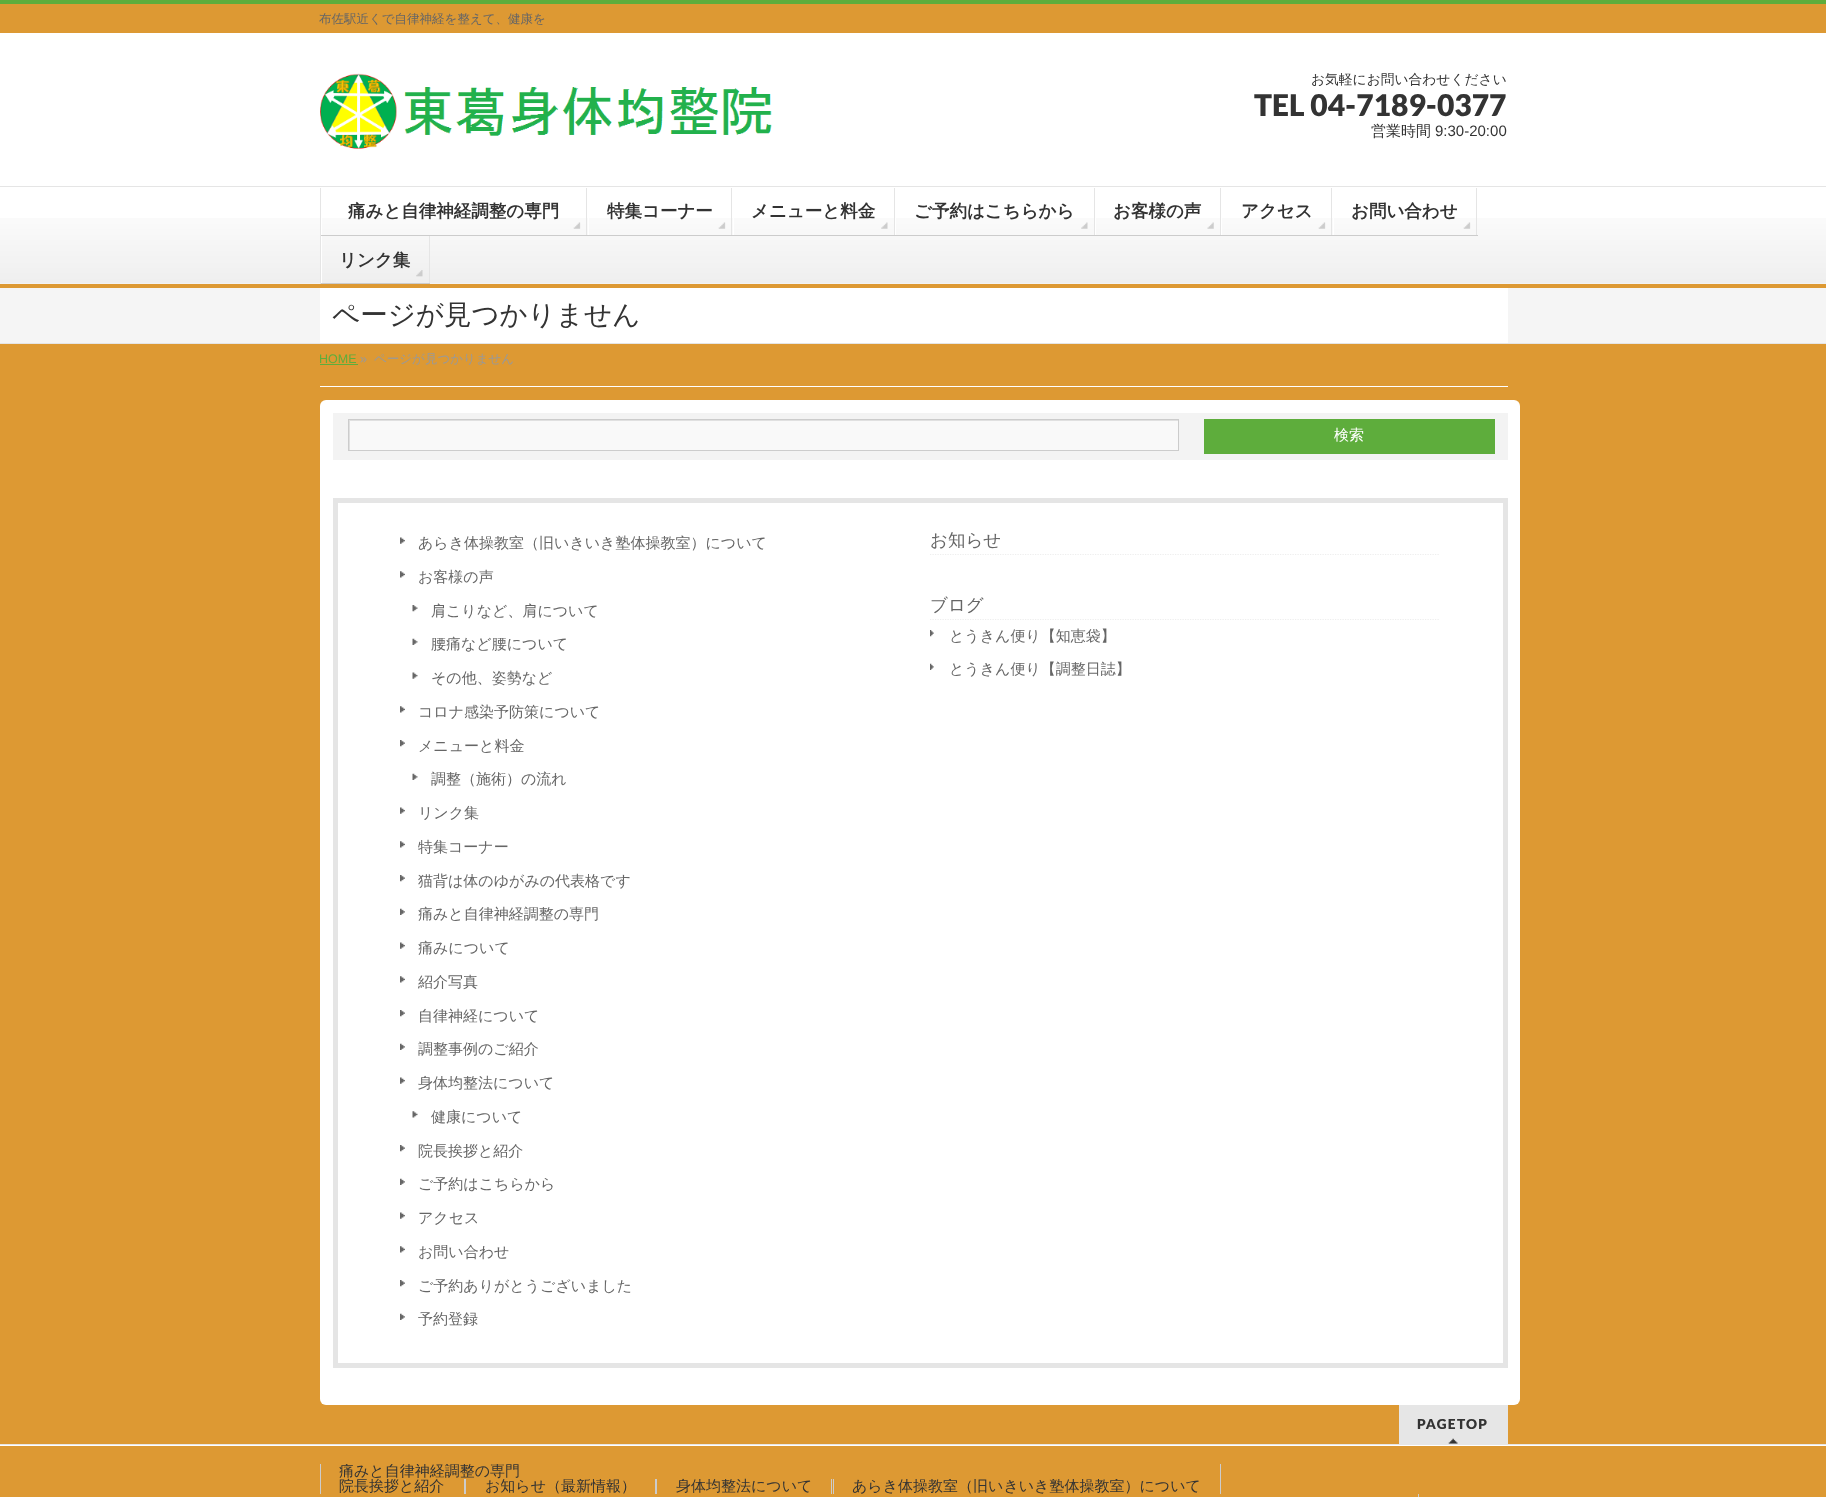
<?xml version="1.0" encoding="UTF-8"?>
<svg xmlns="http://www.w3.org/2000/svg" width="1826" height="1497">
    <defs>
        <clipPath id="clip1"><rect x="349" y="420" width="829" height="30"/></clipPath>
        <clipPath id="clip2"><rect x="930" y="528" width="510" height="27"/></clipPath>
        <clipPath id="clip3"><rect x="321" y="1464" width="899" height="15"/></clipPath>
        <clipPath id="clip4"><rect x="466" y="1479" width="189" height="15"/></clipPath>
        <clipPath id="clip5"><rect x="834" y="1479" width="386" height="15"/></clipPath>
    </defs>
    <rect width="100%" height="100%" fill="#DD9933"/>
    <rect x="0" y="0" width="1826" height="4" fill="#5EAD3C"/>
    <text x="319" y="23" font-family="WenQuanYi Zen Hei" font-size="12.5" font-weight="500" fill="#666666">布佐駅近くで自律神経を整えて、健康を</text>
    <rect x="0" y="33" width="1826" height="153" fill="#FFFFFF"/>
    <image x="320" y="73" width="452" height="76" href="img_01.png"/>
    <text x="1311" y="84" font-family="WenQuanYi Zen Hei" font-size="13.75" font-weight="500" fill="#333333">お気軽にお問い合わせください</text>
    <text x="1254" y="116" font-family="Lato" font-size="30" font-weight="900" fill="#333333">TEL 04-7189-0377</text>
    <text x="1371" y="136" font-family="WenQuanYi Zen Hei" font-size="15" font-weight="500" fill="#333333">営業時間</text>
    <text x="1435" y="136" font-family="Liberation Sans" font-size="15" fill="#333333">9:30-20:00</text>
    <rect x="0" y="187" width="1826" height="97" fill="#FFFFFF"/>
    <image x="0" y="218" width="1826" height="66" href="img_02.png"/>
    <rect x="0" y="186" width="1826" height="1" fill="#E5E5E5"/>
    <rect x="320" y="188" width="1" height="96" fill="#E5E5E5"/>
    <rect x="321" y="218" width="1" height="66" fill="#FFFFFF"/>
    <image x="573" y="222" width="8" height="7" href="img_03.png"/>
    <rect x="586" y="188" width="1" height="48" fill="#E5E5E5"/>
    <rect x="321" y="235" width="267" height="1" fill="#CCCCCC"/>
    <text x="348" y="217" font-family="WenQuanYi Zen Hei" font-size="17.5" font-weight="700" fill="#333333">痛みと自律神経調整の専門</text>
    <rect x="588" y="218" width="1" height="18" fill="#FFFFFF"/>
    <image x="718" y="222" width="8" height="7" href="img_03.png"/>
    <rect x="731" y="188" width="1" height="48" fill="#E5E5E5"/>
    <rect x="588" y="235" width="145" height="1" fill="#CCCCCC"/>
    <text x="607" y="217" font-family="WenQuanYi Zen Hei" font-size="17.5" font-weight="700" fill="#333333">特集コーナー</text>
    <rect x="733" y="218" width="1" height="18" fill="#FFFFFF"/>
    <image x="881" y="222" width="7" height="7" href="img_04.png"/>
    <rect x="894" y="188" width="1" height="48" fill="#E5E5E5"/>
    <rect x="733" y="235" width="162" height="1" fill="#CCCCCC"/>
    <text x="751" y="217" font-family="WenQuanYi Zen Hei" font-size="17.5" font-weight="700" fill="#333333">メニューと料金</text>
    <rect x="895" y="218" width="1" height="18" fill="#FFFFFF"/>
    <image x="1081" y="222" width="7" height="7" href="img_04.png"/>
    <rect x="1094" y="188" width="1" height="48" fill="#E5E5E5"/>
    <rect x="895" y="235" width="200" height="1" fill="#CCCCCC"/>
    <text x="914" y="217" font-family="WenQuanYi Zen Hei" font-size="17.5" font-weight="700" fill="#333333">ご予約はこちらから</text>
    <rect x="1095" y="218" width="1" height="18" fill="#FFFFFF"/>
    <image x="1207" y="222" width="7" height="7" href="img_05.png"/>
    <rect x="1220" y="188" width="1" height="48" fill="#E5E5E5"/>
    <rect x="1095" y="235" width="126" height="1" fill="#CCCCCC"/>
    <text x="1113" y="217" font-family="WenQuanYi Zen Hei" font-size="17.5" font-weight="700" fill="#333333">お客様の声</text>
    <rect x="1221" y="218" width="1" height="18" fill="#FFFFFF"/>
    <image x="1318" y="222" width="8" height="7" href="img_06.png"/>
    <rect x="1331" y="188" width="1" height="48" fill="#E5E5E5"/>
    <rect x="1221" y="235" width="112" height="1" fill="#CCCCCC"/>
    <text x="1241" y="217" font-family="WenQuanYi Zen Hei" font-size="17.5" font-weight="700" fill="#333333">アクセス</text>
    <rect x="1333" y="218" width="1" height="18" fill="#FFFFFF"/>
    <image x="1463" y="222" width="8" height="7" href="img_06.png"/>
    <rect x="1476" y="188" width="1" height="48" fill="#E5E5E5"/>
    <rect x="1333" y="235" width="145" height="1" fill="#CCCCCC"/>
    <text x="1351" y="217" font-family="WenQuanYi Zen Hei" font-size="17.5" font-weight="700" fill="#333333">お問い合わせ</text>
    <image x="416" y="270" width="7" height="7" href="img_07.png"/>
    <rect x="429" y="236" width="1" height="48" fill="#E5E5E5"/>
    <rect x="321" y="283" width="109" height="1" fill="#CCCCCC"/>
    <text x="339" y="266" font-family="WenQuanYi Zen Hei" font-size="17.5" font-weight="700" fill="#333333">リンク集</text>
    <rect x="0" y="288" width="1826" height="55" fill="#F5F5F5"/>
    <rect x="0" y="343" width="1826" height="1" fill="#E5E5E5"/>
    <rect x="320" y="288" width="1188" height="55" fill="#FFFFFF"/>
    <text x="332" y="324" font-family="WenQuanYi Zen Hei" font-size="27.5" font-weight="500" fill="#333333">ページが見つかりません</text>
    <rect x="320" y="386" width="1188" height="1" fill="#FFFFFF"/>
    <text x="319" y="363" font-family="Liberation Sans" font-size="12.5" fill="#5EAD3C">HOME</text>
    <rect x="320" y="364" width="38" height="1" fill="#5EAD3C"/>
    <text x="360" y="363" font-family="Liberation Sans" font-size="12.5" fill="#999999">»</text>
    <text x="374" y="363" font-family="WenQuanYi Zen Hei" font-size="12.5" font-weight="500" fill="#999999">ページが見つかりません</text>
    <rect x="320" y="400" width="1200" height="1005" rx="6" fill="#FFFFFF"/>
    <rect x="333" y="413" width="1175" height="47" fill="#F3F3F3"/>
    <rect x="350" y="421" width="828" height="29" fill="#F9F9F9"/>
    <g clip-path="url(#clip1)">
        <path d="M 225 296 H 1301 V 574 H 225 Z M 350 421 H 1179 V 451 H 350 Z" fill="#E0E0E0" fill-rule="evenodd"/>
    </g>
    <rect x="348.5" y="419.5" width="830" height="31" fill="none" stroke="#CCCCCC"/>
    <rect x="1204" y="419" width="291" height="35" fill="#5EAD3C"/>
    <text x="1334" y="440" font-family="WenQuanYi Zen Hei" font-size="15" font-weight="500" fill="#FFFFFF">検索</text>
    <rect x="335.5" y="500.5" width="1170" height="865" fill="none" stroke="#E5E5E5" stroke-width="5"/>
    <image x="400" y="537" width="5" height="7" href="img_08.png"/>
    <text x="418" y="548" font-family="WenQuanYi Zen Hei" font-size="15" font-weight="500" fill="#666666">あらき体操教室（旧いきいき塾体操教室）について</text>
    <image x="400" y="571" width="5" height="7" href="img_09.png"/>
    <text x="418" y="582" font-family="WenQuanYi Zen Hei" font-size="15" font-weight="500" fill="#666666">お客様の声</text>
    <image x="412" y="605" width="6" height="7" href="img_10.png"/>
    <text x="431" y="616" font-family="WenQuanYi Zen Hei" font-size="15" font-weight="500" fill="#666666">肩こりなど、肩について</text>
    <image x="412" y="638" width="6" height="7" href="img_11.png"/>
    <text x="431" y="649" font-family="WenQuanYi Zen Hei" font-size="15" font-weight="500" fill="#666666">腰痛など腰について</text>
    <image x="412" y="672" width="6" height="7" href="img_12.png"/>
    <text x="431" y="683" font-family="WenQuanYi Zen Hei" font-size="15" font-weight="500" fill="#666666">その他、姿勢など</text>
    <image x="400" y="706" width="5" height="7" href="img_09.png"/>
    <text x="418" y="717" font-family="WenQuanYi Zen Hei" font-size="15" font-weight="500" fill="#666666">コロナ感染予防策について</text>
    <image x="400" y="740" width="5" height="7" href="img_13.png"/>
    <text x="418" y="751" font-family="WenQuanYi Zen Hei" font-size="15" font-weight="500" fill="#666666">メニューと料金</text>
    <image x="412" y="773" width="6" height="7" href="img_11.png"/>
    <text x="431" y="784" font-family="WenQuanYi Zen Hei" font-size="15" font-weight="500" fill="#666666">調整（施術）の流れ</text>
    <image x="400" y="807" width="5" height="7" href="img_08.png"/>
    <text x="418" y="818" font-family="WenQuanYi Zen Hei" font-size="15" font-weight="500" fill="#666666">リンク集</text>
    <image x="400" y="841" width="5" height="7" href="img_09.png"/>
    <text x="418" y="852" font-family="WenQuanYi Zen Hei" font-size="15" font-weight="500" fill="#666666">特集コーナー</text>
    <image x="400" y="875" width="5" height="7" href="img_13.png"/>
    <text x="418" y="886" font-family="WenQuanYi Zen Hei" font-size="15" font-weight="500" fill="#666666">猫背は体のゆがみの代表格です</text>
    <image x="400" y="908" width="5" height="7" href="img_14.png"/>
    <text x="418" y="919" font-family="WenQuanYi Zen Hei" font-size="15" font-weight="500" fill="#666666">痛みと自律神経調整の専門</text>
    <image x="400" y="942" width="5" height="7" href="img_08.png"/>
    <text x="418" y="953" font-family="WenQuanYi Zen Hei" font-size="15" font-weight="500" fill="#666666">痛みについて</text>
    <image x="400" y="976" width="5" height="7" href="img_09.png"/>
    <text x="418" y="987" font-family="WenQuanYi Zen Hei" font-size="15" font-weight="500" fill="#666666">紹介写真</text>
    <image x="400" y="1010" width="5" height="7" href="img_13.png"/>
    <text x="418" y="1021" font-family="WenQuanYi Zen Hei" font-size="15" font-weight="500" fill="#666666">自律神経について</text>
    <image x="400" y="1043" width="5" height="7" href="img_14.png"/>
    <text x="418" y="1054" font-family="WenQuanYi Zen Hei" font-size="15" font-weight="500" fill="#666666">調整事例のご紹介</text>
    <image x="400" y="1077" width="5" height="7" href="img_08.png"/>
    <text x="418" y="1088" font-family="WenQuanYi Zen Hei" font-size="15" font-weight="500" fill="#666666">身体均整法について</text>
    <image x="412" y="1111" width="6" height="7" href="img_15.png"/>
    <text x="431" y="1122" font-family="WenQuanYi Zen Hei" font-size="15" font-weight="500" fill="#666666">健康について</text>
    <image x="400" y="1145" width="5" height="7" href="img_13.png"/>
    <text x="418" y="1156" font-family="WenQuanYi Zen Hei" font-size="15" font-weight="500" fill="#666666">院長挨拶と紹介</text>
    <image x="400" y="1178" width="5" height="7" href="img_14.png"/>
    <text x="418" y="1189" font-family="WenQuanYi Zen Hei" font-size="15" font-weight="500" fill="#666666">ご予約はこちらから</text>
    <image x="400" y="1212" width="5" height="7" href="img_08.png"/>
    <text x="418" y="1223" font-family="WenQuanYi Zen Hei" font-size="15" font-weight="500" fill="#666666">アクセス</text>
    <image x="400" y="1246" width="5" height="7" href="img_09.png"/>
    <text x="418" y="1257" font-family="WenQuanYi Zen Hei" font-size="15" font-weight="500" fill="#666666">お問い合わせ</text>
    <image x="400" y="1280" width="5" height="7" href="img_13.png"/>
    <text x="418" y="1291" font-family="WenQuanYi Zen Hei" font-size="15" font-weight="500" fill="#666666">ご予約ありがとうございました</text>
    <image x="400" y="1313" width="5" height="7" href="img_14.png"/>
    <text x="418" y="1324" font-family="WenQuanYi Zen Hei" font-size="15" font-weight="500" fill="#666666">予約登録</text>
    <g clip-path="url(#clip2)">
        <path d="M 930 554.5 H 1440" fill="none" stroke="#EEEEEE" stroke-width="1.2" stroke-dasharray="1.25 1.25"/>
    </g>
    <text x="930" y="546" font-family="WenQuanYi Zen Hei" font-size="17.5" font-weight="500" fill="#666666">お知らせ</text>
    <path d="M 930 619.5 H 1440" fill="none" stroke="#EEEEEE" stroke-width="1.2" stroke-dasharray="1.25 1.25"/>
    <text x="930" y="611" font-family="WenQuanYi Zen Hei" font-size="17.5" font-weight="500" fill="#666666">ブログ</text>
    <image x="930" y="630" width="4" height="7" href="img_16.png"/>
    <text x="949" y="641" font-family="WenQuanYi Zen Hei" font-size="15" font-weight="500" fill="#666666">とうきん便り【知恵袋】</text>
    <image x="930" y="663" width="4" height="7" href="img_17.png"/>
    <text x="949" y="674" font-family="WenQuanYi Zen Hei" font-size="15" font-weight="500" fill="#666666">とうきん便り【調整日誌】</text>
    <rect x="1399" y="1405" width="109" height="39" fill="#E6E6E6"/>
    <image x="1448" y="1438" width="10" height="6" href="img_18.png"/>
    <text x="1417" y="1429" font-family="Lato" font-size="13.75" font-weight="900" letter-spacing="1.25" fill="#333333">PAGETOP</text>
    <rect x="0" y="1445" width="1826" height="1" fill="#FFFFFF"/>
    <rect x="0" y="1444" width="1826" height="1" fill="#E6E6E6"/>
    <rect x="1220" y="1464" width="1" height="30" fill="#CCCCCC"/>
    <rect x="320" y="1464" width="1" height="30" fill="#CCCCCC"/>
    <g clip-path="url(#clip3)">
        <text x="339" y="1476" font-family="WenQuanYi Zen Hei" font-size="15" font-weight="500" fill="#333333">痛みと自律神経調整の専門</text>
    </g>
    <rect x="464" y="1479" width="2" height="15" fill="#CCCCCC"/>
    <text x="339" y="1491" font-family="WenQuanYi Zen Hei" font-size="15" font-weight="500" fill="#333333">院長挨拶と紹介</text>
    <rect x="655" y="1479" width="2" height="15" fill="#CCCCCC"/>
    <g clip-path="url(#clip4)">
        <text x="485" y="1491" font-family="WenQuanYi Zen Hei" font-size="15" font-weight="500" fill="#333333">お知らせ（最新情報）</text>
    </g>
    <rect x="831" y="1479" width="1" height="15" fill="#CCCCCC"/>
    <text x="676" y="1491" font-family="WenQuanYi Zen Hei" font-size="15" font-weight="500" fill="#333333">身体均整法について</text>
    <rect x="833" y="1479" width="1" height="15" fill="#CCCCCC"/>
    <g clip-path="url(#clip5)">
        <text x="852" y="1491" font-family="WenQuanYi Zen Hei" font-size="15" font-weight="500" fill="#333333">あらき体操教室（旧いきいき塾体操教室）について</text>
    </g>
    <rect x="1418" y="1494" width="1" height="3" fill="#CCCCCC"/>
</svg>
